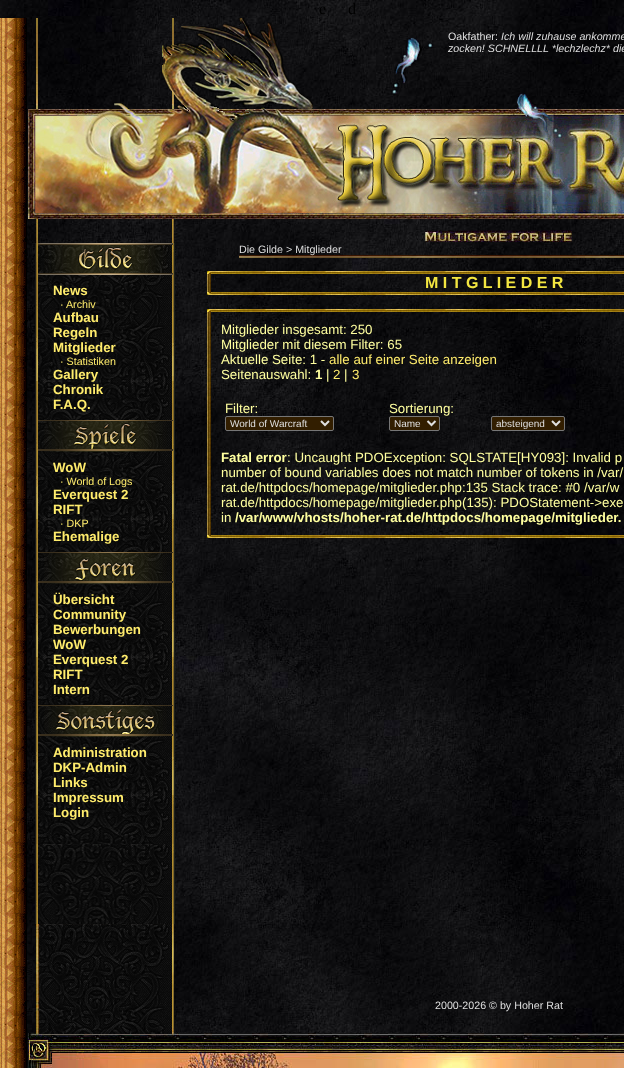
<?xml version="1.0" encoding="UTF-8"?>
<svg xmlns="http://www.w3.org/2000/svg" width="624" height="1068">
    <rect width="100%" height="100%" fill="#FFFFFF"/>
    <image x="0" y="0" width="624" height="1068" href="img_01.png"/>
    <text x="319" y="14" font-family="Liberation Serif" font-size="16" fill="#000000">e</text>
    <text x="348" y="14" font-family="Liberation Serif" font-size="16" fill="#000000">d</text>
    <image x="0" y="18" width="27" height="225" href="img_02.png"/>
    <image x="28" y="18" width="596" height="225" href="img_03.png"/>
    <text x="448" y="40" font-family="Liberation Sans" font-size="10.7" fill="#DFDFDF">Oakfather:</text>
    <text x="501" y="40" font-family="Liberation Sans" font-size="10.7" font-style="italic" fill="#DFDFDF">Ich will zuhause ankomme</text>
    <text x="448" y="52" font-family="Liberation Sans" font-size="10.7" font-style="italic" fill="#DFDFDF">zocken! SCHNELLLL *lechzlechz* die</text>
    <image x="0" y="243" width="27" height="681" href="img_04.png"/>
    <image x="35" y="243" width="140" height="601" href="img_05.png"/>
    <image x="38" y="243" width="135" height="32" href="img_06.png"/>
    <text x="53" y="295" font-family="Liberation Sans" font-size="13.3" font-weight="700" fill="#FFEC6C">News</text>
    <text x="60" y="308" font-family="Liberation Sans" font-size="10.7" fill="#FFEC6C">· Archiv</text>
    <text font-family="Liberation Sans" font-size="13.3" font-weight="700" fill="#FFEC6C">
        <tspan x="53" y="322">Aufbau</tspan>
        <tspan x="53" y="337">Regeln</tspan>
        <tspan x="53" y="352">Mitglieder</tspan>
    </text>
    <text x="60" y="365" font-family="Liberation Sans" font-size="10.7" fill="#FFEC6C">· Statistiken</text>
    <text font-family="Liberation Sans" font-size="13.3" font-weight="700" fill="#FFEC6C">
        <tspan x="53" y="379">Gallery</tspan>
        <tspan x="53" y="394">Chronik</tspan>
        <tspan x="53" y="409">F.A.Q.</tspan>
    </text>
    <image x="38" y="420" width="135" height="32" href="img_07.png"/>
    <text x="53" y="472" font-family="Liberation Sans" font-size="13.3" font-weight="700" fill="#FFEC6C">WoW</text>
    <text x="60" y="485" font-family="Liberation Sans" font-size="10.7" fill="#FFEC6C">· World of Logs</text>
    <text font-family="Liberation Sans" font-size="13.3" font-weight="700" fill="#FFEC6C">
        <tspan x="53" y="499">Everquest 2</tspan>
        <tspan x="53" y="514">RIFT</tspan>
    </text>
    <text x="60" y="527" font-family="Liberation Sans" font-size="10.7" fill="#FFEC6C">· DKP</text>
    <text x="53" y="541" font-family="Liberation Sans" font-size="13.3" font-weight="700" fill="#FFEC6C">Ehemalige</text>
    <image x="38" y="552" width="135" height="32" href="img_08.png"/>
    <text font-family="Liberation Sans" font-size="13.3" font-weight="700" fill="#FFEC6C">
        <tspan x="53" y="604">Übersicht</tspan>
        <tspan x="53" y="619">Community</tspan>
        <tspan x="53" y="634">Bewerbungen</tspan>
        <tspan x="53" y="649">WoW</tspan>
        <tspan x="53" y="664">Everquest 2</tspan>
        <tspan x="53" y="679">RIFT</tspan>
        <tspan x="53" y="694">Intern</tspan>
    </text>
    <image x="38" y="705" width="135" height="32" href="img_09.png"/>
    <text font-family="Liberation Sans" font-size="13.3" font-weight="700" fill="#FFEC6C">
        <tspan x="53" y="757">Administration</tspan>
        <tspan x="53" y="772">DKP-Admin</tspan>
        <tspan x="53" y="787">Links</tspan>
        <tspan x="53" y="802">Impressum</tspan>
        <tspan x="53" y="817">Login</tspan>
    </text>
    <image x="239" y="255" width="385" height="3" href="img_10.png"/>
    <text x="239" y="253" font-family="Liberation Sans" font-size="10.7" fill="#DFDFDF">Die Gilde &gt; Mitglieder</text>
    <image x="207" y="271" width="4" height="3" href="img_11.png"/>
    <image x="211" y="271" width="413" height="3" href="img_12.png"/>
    <image x="207" y="274" width="4" height="18" href="img_13.png"/>
    <image x="207" y="276" width="4" height="14" href="img_14.png"/>
    <text x="425" y="288" font-family="Liberation Sans" font-size="16" font-weight="700" fill="#F3E641">M I T G L I E D E R</text>
    <image x="207" y="292" width="4" height="3" href="img_15.png"/>
    <image x="211" y="292" width="413" height="3" href="img_16.png"/>
    <image x="207" y="309" width="4" height="3" href="img_11.png"/>
    <image x="211" y="309" width="413" height="3" href="img_12.png"/>
    <image x="207" y="312" width="4" height="223" href="img_17.png"/>
    <image x="207" y="416" width="4" height="14" href="img_14.png"/>
    <text font-family="Liberation Sans" font-size="13.3" fill="#FFFF9F">
        <tspan x="221" y="334">Mitglieder insgesamt: 250</tspan>
        <tspan x="221" y="349">Mitglieder mit diesem Filter: 65</tspan>
        <tspan x="221" y="364">Aktuelle Seite: 1 -</tspan>
    </text>
    <text x="329" y="364" font-family="Liberation Sans" font-size="13.3" fill="#FFEC6C">alle auf einer Seite anzeigen</text>
    <text x="221" y="379" font-family="Liberation Sans" font-size="13.3" fill="#FFFF9F">Seitenauswahl:</text>
    <text x="315" y="379" font-family="Liberation Sans" font-size="13.3" font-weight="700" fill="#FFFF9F">1</text>
    <text x="326" y="379" font-family="Liberation Sans" font-size="13.3" fill="#FFFF9F">|</text>
    <text x="333" y="379" font-family="Liberation Sans" font-size="13.3" fill="#FFEC6C">2</text>
    <text x="344" y="379" font-family="Liberation Sans" font-size="13.3" fill="#FFFF9F">|</text>
    <text x="352" y="379" font-family="Liberation Sans" font-size="13.3" fill="#FFEC6C">3</text>
    <text x="225" y="413" font-family="Liberation Sans" font-size="13.3" fill="#FFFF9F">Filter:</text>
    <rect x="225.5" y="416.5" width="108" height="14" rx="1.5" fill="#321E00" stroke="#767676"/>
    <path d="M 321 421 L 325 425 L 329 421" fill="none" stroke="#DFDFDF" stroke-width="2"/>
    <text x="230" y="427" font-family="Liberation Sans" font-size="10" fill="#DFDFDF">World of Warcraft</text>
    <text x="389" y="413" font-family="Liberation Sans" font-size="13.3" fill="#FFFF9F">Sortierung:</text>
    <rect x="389.5" y="416.5" width="50" height="14" rx="1.5" fill="#321E00" stroke="#767676"/>
    <path d="M 427.5 421 L 431.5 425 L 435.5 421" fill="none" stroke="#DFDFDF" stroke-width="2"/>
    <text x="394" y="427" font-family="Liberation Sans" font-size="10" fill="#DFDFDF">Name</text>
    <rect x="491.5" y="416.5" width="73" height="14" rx="1.5" fill="#321E00" stroke="#767676"/>
    <path d="M 552 421 L 556 425 L 560 421" fill="none" stroke="#DFDFDF" stroke-width="2"/>
    <text x="496" y="427" font-family="Liberation Sans" font-size="10" fill="#DFDFDF">absteigend</text>
    <text x="221" y="462" font-family="Liberation Sans" font-size="13.3" font-weight="700" fill="#FFFF9F">Fatal error</text>
    <text x="287" y="462" font-family="Liberation Sans" font-size="13.3" fill="#FFFF9F">: Uncaught PDOException: SQLSTATE[HY093]: Invalid p</text>
    <text font-family="Liberation Sans" font-size="13.3" fill="#FFFF9F">
        <tspan x="221" y="477">number of bound variables does not match number of tokens in /var/</tspan>
        <tspan x="221" y="492">rat.de/httpdocs/homepage/mitglieder.php:135 Stack trace: #0 /var/w</tspan>
        <tspan x="221" y="507">rat.de/httpdocs/homepage/mitglieder.php(135): PDOStatement-&gt;exe</tspan>
        <tspan x="221" y="522">in</tspan>
    </text>
    <text x="235" y="522" font-family="Liberation Sans" font-size="13.3" font-weight="700" fill="#FFFF9F">/var/www/vhosts/hoher-rat.de/httpdocs/homepage/mitglieder.</text>
    <image x="207" y="535" width="4" height="3" href="img_15.png"/>
    <image x="211" y="535" width="413" height="3" href="img_16.png"/>
    <image x="35" y="844" width="140" height="80" href="img_18.png"/>
    <image x="0" y="924" width="27" height="144" href="img_19.png"/>
    <image x="28" y="924" width="596" height="144" href="img_20.png"/>
    <text x="435" y="1009" font-family="Liberation Sans" font-size="10.7" fill="#DFDFDF">2000-2026 © by Hoher Rat</text>
</svg>
